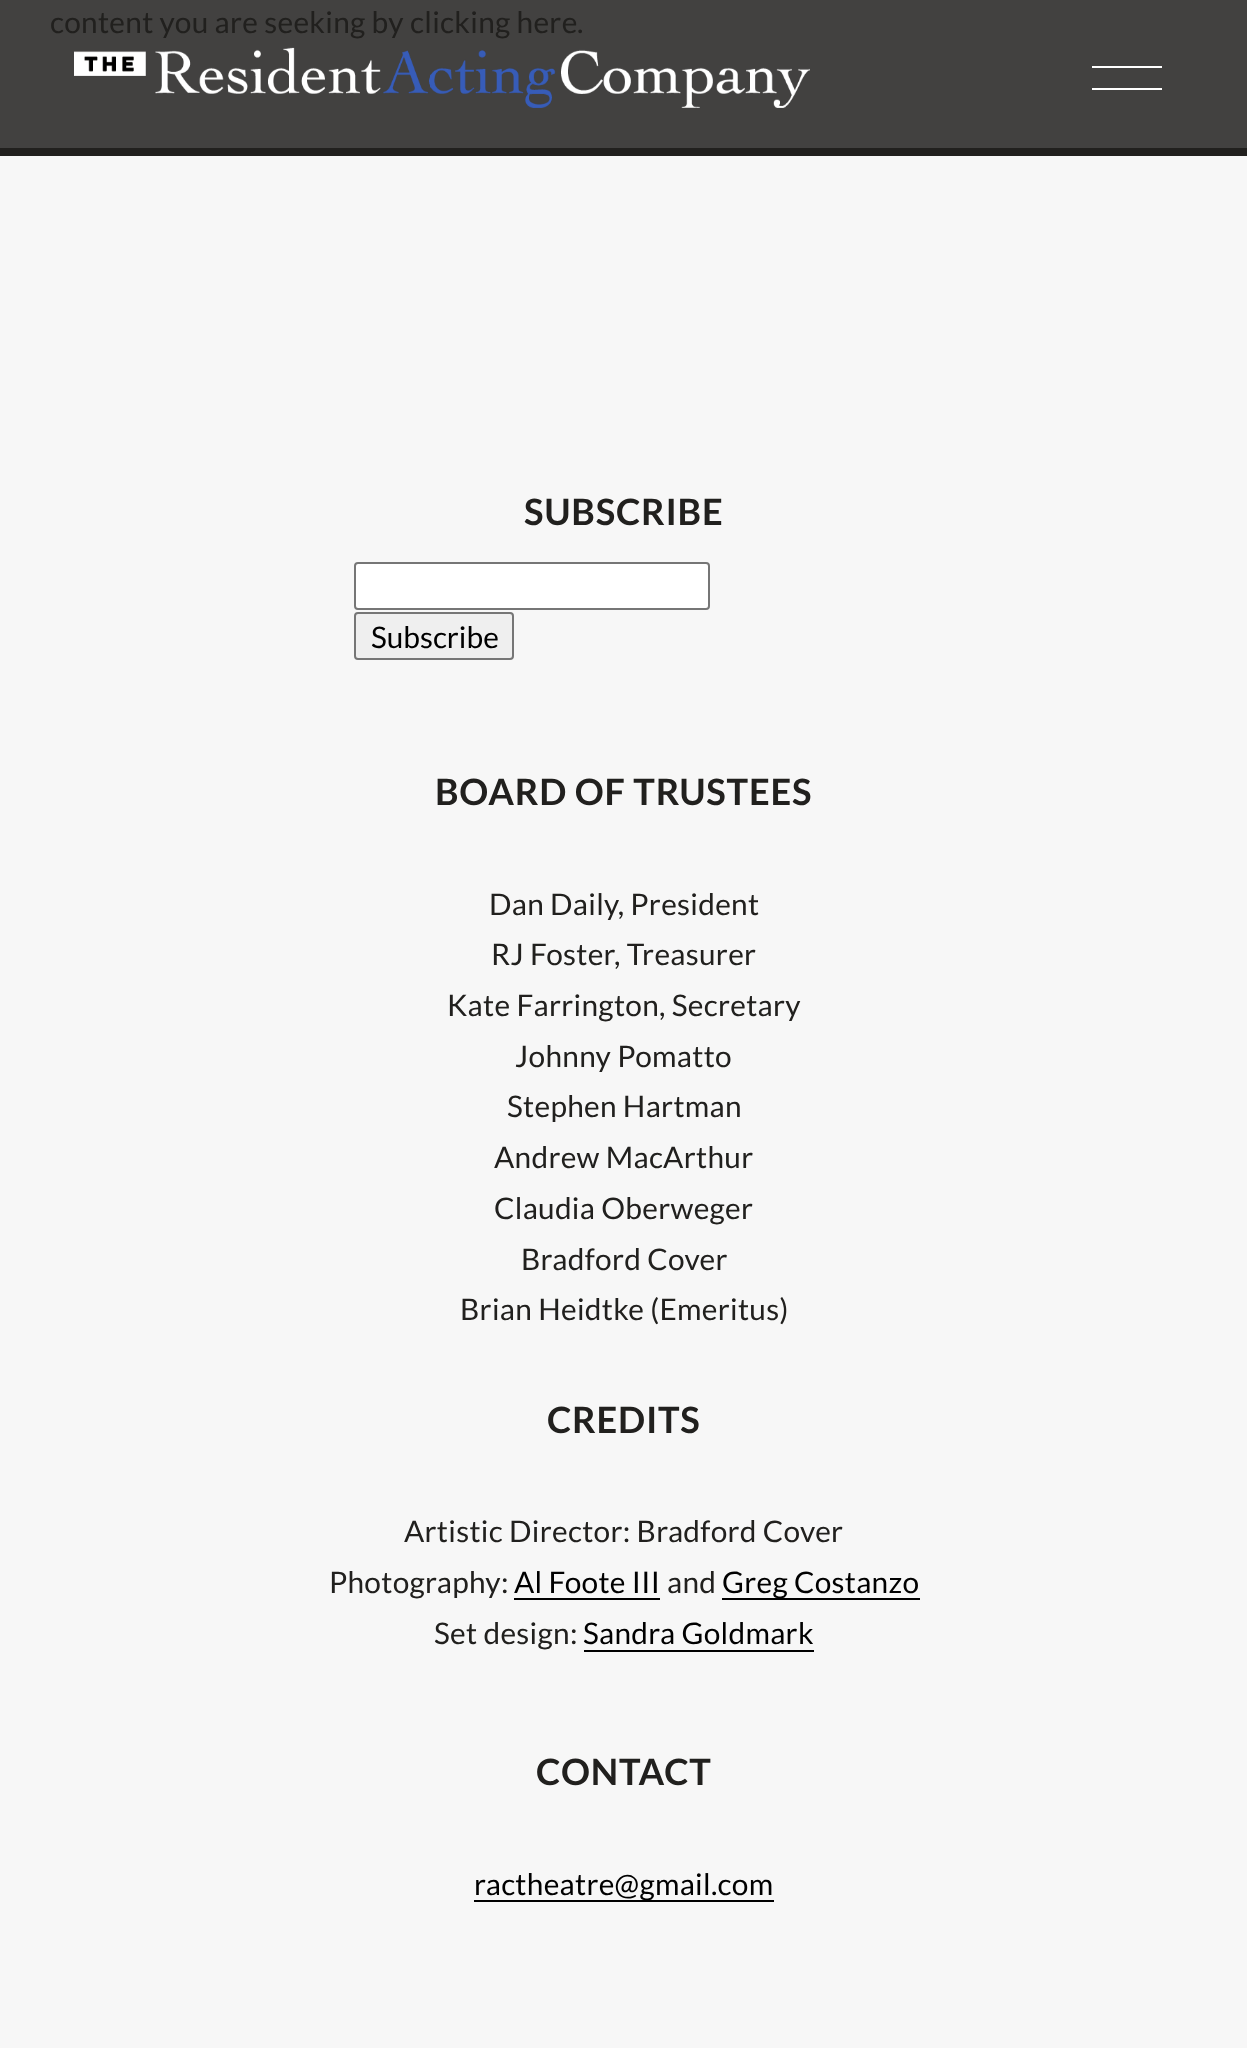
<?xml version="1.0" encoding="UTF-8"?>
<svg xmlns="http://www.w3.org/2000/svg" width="1247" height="2048">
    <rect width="100%" height="100%" fill="#424140"/>
    <text x="50" y="33" font-family="Lato" font-size="29.8" letter-spacing="0.3" fill="#21201E">content you are seeking by</text>
    <text x="410" y="33" font-family="Lato" font-size="29.8" letter-spacing="0.3" fill="#21201E">clicking here</text>
    <text x="577" y="33" font-family="Lato" font-size="29.8" letter-spacing="0.3" fill="#21201E">.</text>
    <image x="74" y="47" width="736" height="61" href="img_01.png"/>
    <rect x="1092" y="66" width="70" height="2" fill="#FFFFFF"/>
    <rect x="1092" y="88" width="70" height="2" fill="#FFFFFF"/>
    <rect x="0" y="148" width="1247" height="8" fill="#21201E"/>
    <rect x="0" y="156" width="1247" height="1892" fill="#F7F7F7"/>
    <text x="524" y="525" font-family="Lato" font-size="36.25" font-weight="700" letter-spacing="0.75" fill="#21201E">SUBSCRIBE</text>
    <rect x="355" y="563" width="354" height="46" rx="3" fill="#FFFFFF" stroke="#767676" stroke-width="2"/>
    <rect x="355" y="613" width="158" height="46" rx="3" fill="#EFEFEF" stroke="#767676" stroke-width="2"/>
    <text x="371" y="648" font-family="Lato" font-size="29.8" fill="#000000">Subscribe</text>
    <text x="435" y="805" font-family="Lato" font-size="36.25" font-weight="700" letter-spacing="0.75" fill="#21201E">BOARD OF TRUSTEES</text>
    <text x="489" y="915" font-family="Lato" font-size="29.8" letter-spacing="0.3" fill="#21201E">Dan Daily, President</text>
    <text x="491" y="965" font-family="Lato" font-size="29.8" letter-spacing="0.3" fill="#21201E">RJ Foster, Treasurer</text>
    <text x="447" y="1016" font-family="Lato" font-size="29.8" letter-spacing="0.3" fill="#21201E">Kate Farrington, Secretary</text>
    <text x="515" y="1067" font-family="Lato" font-size="29.8" letter-spacing="0.3" fill="#21201E">Johnny Pomatto</text>
    <text x="507" y="1117" font-family="Lato" font-size="29.8" letter-spacing="0.3" fill="#21201E">Stephen Hartman</text>
    <text font-family="Lato" font-size="29.8" letter-spacing="0.3" fill="#21201E">
        <tspan x="494" y="1168">Andrew MacArthur</tspan>
        <tspan x="494" y="1219">Claudia Oberweger</tspan>
    </text>
    <text x="521" y="1270" font-family="Lato" font-size="29.8" letter-spacing="0.3" fill="#21201E">Bradford Cover</text>
    <text x="460" y="1320" font-family="Lato" font-size="29.8" letter-spacing="0.3" fill="#21201E">Brian Heidtke (Emeritus)</text>
    <text x="547" y="1433" font-family="Lato" font-size="36.25" font-weight="700" letter-spacing="0.75" fill="#21201E">CREDITS</text>
    <text x="404" y="1542" font-family="Lato" font-size="29.8" letter-spacing="0.3" fill="#21201E">Artistic Director: Bradford Cover</text>
    <text x="329" y="1593" font-family="Lato" font-size="29.8" letter-spacing="0.3" fill="#21201E">Photography:</text>
    <text x="514" y="1593" font-family="Lato" font-size="29.8" letter-spacing="0.3" fill="#000000">Al Foote III</text>
    <rect x="514" y="1598" width="146" height="2" fill="#000000"/>
    <text x="667" y="1593" font-family="Lato" font-size="29.8" letter-spacing="0.3" fill="#21201E">and</text>
    <rect x="722" y="1598" width="198" height="2" fill="#000000"/>
    <text x="722" y="1593" font-family="Lato" font-size="29.8" letter-spacing="0.3" fill="#000000">Greg Costanzo</text>
    <text x="434" y="1644" font-family="Lato" font-size="29.8" letter-spacing="0.3" fill="#21201E">Set design:</text>
    <text x="583" y="1644" font-family="Lato" font-size="29.8" letter-spacing="0.3" fill="#000000">Sandra Goldmark</text>
    <rect x="584" y="1650" width="230" height="2" fill="#000000"/>
    <text x="536" y="1785" font-family="Lato" font-size="36.25" font-weight="700" letter-spacing="0.75" fill="#21201E">CONTACT</text>
    <rect x="474" y="1900" width="300" height="2" fill="#000000"/>
    <text x="474" y="1895" font-family="Lato" font-size="29.8" letter-spacing="0.3" fill="#000000">ractheatre@gmail.com</text>
</svg>
